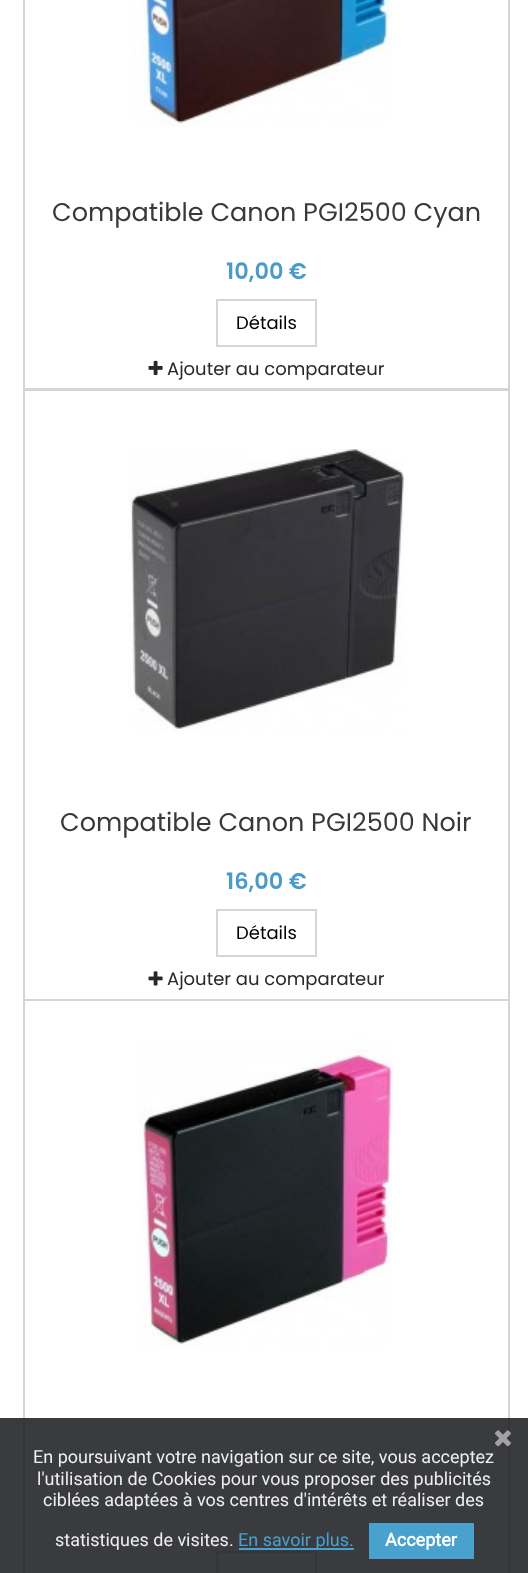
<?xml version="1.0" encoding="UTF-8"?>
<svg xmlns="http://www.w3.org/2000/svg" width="528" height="1573">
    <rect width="100%" height="100%" fill="#FFFFFF"/>
    <rect x="24" y="-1" width="485" height="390" fill="none" stroke="#D6D4D4" stroke-width="2"/>
    <image x="131" y="0" width="262" height="127" href="img_01.png"/>
    <text x="52" y="221" font-family="Poppins" font-size="25.5" fill="#3A3939">Compatible Canon PGI2500 Cyan</text>
    <text x="226" y="279" font-family="Poppins" font-size="22.5" font-weight="600" fill="#4A9BCA">10,00 €</text>
    <rect x="217" y="300" width="99" height="46" fill="none" stroke="#D6D4D4" stroke-width="2"/>
    <text x="236" y="329" font-family="Poppins" font-size="18" fill="#000000">Détails</text>
    <image x="148" y="360" width="15" height="15" href="img_02.png"/>
    <text x="167" y="375" font-family="Poppins" font-size="18" fill="#282828">Ajouter au comparateur</text>
    <rect x="24" y="390" width="485" height="610" fill="none" stroke="#D6D4D4" stroke-width="2"/>
    <image x="128" y="449" width="276" height="284" href="img_03.png"/>
    <text x="60" y="831" font-family="Poppins" font-size="25.5" fill="#3A3939">Compatible Canon PGI2500 Noir</text>
    <text x="226" y="889" font-family="Poppins" font-size="22.5" font-weight="600" fill="#4A9BCA">16,00 €</text>
    <rect x="217" y="910" width="99" height="46" fill="none" stroke="#D6D4D4" stroke-width="2"/>
    <text x="236" y="939" font-family="Poppins" font-size="18" fill="#000000">Détails</text>
    <image x="148" y="971" width="15" height="15" href="img_04.png"/>
    <text x="167" y="985" font-family="Poppins" font-size="18" fill="#282828">Ajouter au comparateur</text>
    <rect x="24" y="1000" width="485" height="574" fill="none" stroke="#D6D4D4" stroke-width="2"/>
    <image x="137" y="1039" width="256" height="309" href="img_05.png"/>
    <rect x="217" y="1552" width="99" height="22" fill="none" stroke="#D6D4D4" stroke-width="2"/>
    <rect x="0" y="1418" width="528" height="155" fill="#17191C" fill-opacity="0.85"/>
    <image x="495" y="1430" width="16" height="17" href="img_06.png"/>
    <text x="33" y="1463" font-family="Roboto" font-size="18" fill="#EFEFEF">En poursuivant votre navigation sur ce site, vous acceptez</text>
    <text x="37" y="1485" font-family="Roboto" font-size="18" fill="#EFEFEF">l'utilisation de Cookies pour vous proposer des publicités</text>
    <text x="43" y="1506" font-family="Roboto" font-size="18" fill="#EFEFEF">ciblées adaptées à vos centres d'intérêts et réaliser des</text>
    <text x="55" y="1546" font-family="Roboto" font-size="18" fill="#EFEFEF">statistiques de visites.</text>
    <rect x="239" y="1548" width="115" height="2" fill="#49A2CE"/>
    <text x="238" y="1546" font-family="Roboto" font-size="18" fill="#49A2CE">En savoir plus.</text>
    <rect x="369" y="1523" width="105" height="36" fill="#49A2CE"/>
    <text x="385" y="1546" font-family="Roboto" font-size="18" font-weight="700" fill="#FFFFFF">Accepter</text>
</svg>
